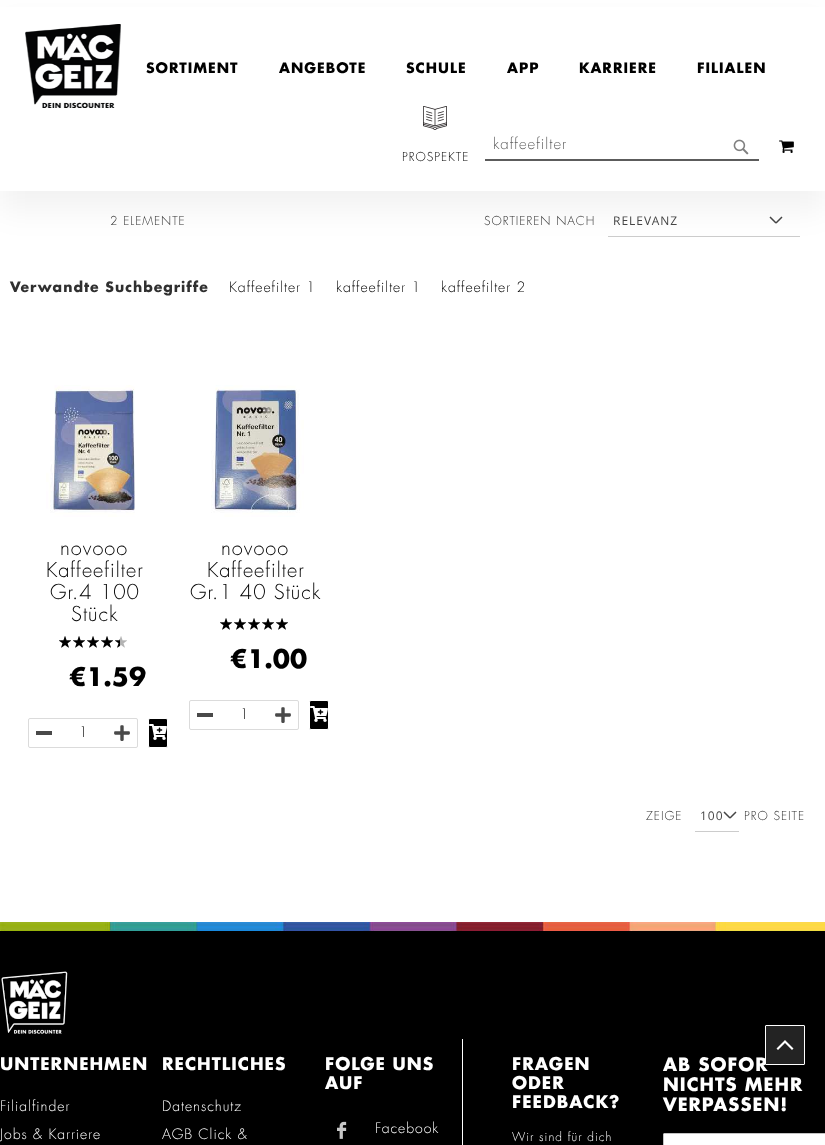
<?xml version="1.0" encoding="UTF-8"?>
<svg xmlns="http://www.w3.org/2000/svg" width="825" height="1145">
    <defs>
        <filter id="blur1" x="-50%" y="-200%" width="200%" height="500%"><feGaussianBlur stdDeviation="15"/></filter>
    </defs>
    <rect width="100%" height="100%" fill="#FFFFFF"/>
    <path d="M 770 217 L 776 223 M 782 217 L 776 223" fill="none" stroke="#454545" stroke-width="1.5"/>
    <rect x="608" y="236" width="192" height="1" fill="#CCCCCC"/>
    <rect x="0" y="20" width="825" height="191" fill="#000000" fill-opacity="0.05" filter="url(#blur1)"/>
    <rect x="0" y="7" width="825" height="184" fill="#FFFFFF"/>
    <image x="25" y="24" width="96" height="84" href="img_01.png"/>
    <text x="146" y="73" font-family="Futura" font-size="14" font-weight="700" letter-spacing="1" fill="#000000">SORTIMENT</text>
    <text x="279" y="73" font-family="Futura" font-size="14" font-weight="700" letter-spacing="1" fill="#000000">ANGEBOTE</text>
    <text x="406" y="73" font-family="Futura" font-size="14" font-weight="700" letter-spacing="1" fill="#000000">SCHULE</text>
    <text x="507" y="73" font-family="Futura" font-size="14" font-weight="700" letter-spacing="1" fill="#000000">APP</text>
    <text x="579" y="73" font-family="Futura" font-size="14" font-weight="700" letter-spacing="1" fill="#000000">KARRIERE</text>
    <text x="697" y="73" font-family="Futura" font-size="14" font-weight="700" letter-spacing="1" fill="#000000">FILIALEN</text>
    <rect x="485" y="159" width="274" height="2" fill="#5C5C5C"/>
    <text x="493" y="149" font-family="Futura" font-size="15" font-weight="300" letter-spacing="1" fill="#5C5C5C">kaffeefilter</text>
    <image x="733" y="139" width="16" height="16" href="img_02.png"/>
    <image x="779" y="140" width="15" height="13" href="img_03.png"/>
    <image x="423" y="106" width="24" height="24" href="img_04.png"/>
    <text x="402" y="161" font-family="Futura" font-size="12" font-weight="300" letter-spacing="1" fill="#000000">PROSPEKTE</text>
    <text x="110" y="225" font-family="Futura" font-size="12" font-weight="300" letter-spacing="1" fill="#303030">2 ELEMENTE</text>
    <text x="484" y="225" font-family="Futura" font-size="12" font-weight="300" letter-spacing="1" fill="#303030">SORTIEREN NACH</text>
    <text x="613" y="225" font-family="Open Sans" font-size="12" letter-spacing="1" fill="#454545">RELEVANZ</text>
    <text x="10" y="292" font-family="Futura" font-size="14" font-weight="700" letter-spacing="1" fill="#303030">Verwandte Suchbegriffe</text>
    <text x="229" y="292" font-family="Futura" font-size="14" font-weight="300" letter-spacing="1" fill="#000000">Kaffeefilter 1</text>
    <text x="336" y="292" font-family="Futura" font-size="14" font-weight="300" letter-spacing="1" fill="#000000">kaffeefilter 1</text>
    <text x="441" y="292" font-family="Futura" font-size="14" font-weight="300" letter-spacing="1" fill="#000000">kaffeefilter 2</text>
    <image x="46" y="385" width="89" height="132" href="img_05.png"/>
    <text x="60" y="555" font-family="Futura" font-size="20" font-weight="300" letter-spacing="1" fill="#000000">novooo</text>
    <text x="46" y="577" font-family="Futura" font-size="20" font-weight="300" letter-spacing="1" fill="#000000">Kaffeefilter</text>
    <text x="50" y="599" font-family="Futura" font-size="20" font-weight="300" letter-spacing="1" fill="#000000">Gr.4 100</text>
    <text x="71" y="621" font-family="Futura" font-size="20" font-weight="300" letter-spacing="1" fill="#000000">Stück</text>
    <image x="59" y="636" width="68" height="12" href="img_06.png"/>
    <image x="59" y="636" width="61" height="12" href="img_07.png"/>
    <text x="69" y="686" font-family="Futura" font-size="25" font-weight="700" fill="#000000">€1.59</text>
    <rect x="28.5" y="718.5" width="109" height="29" rx="1.5" fill="none" stroke="#DBDBDB"/>
    <rect x="36" y="731" width="16" height="4" fill="#494949"/>
    <text x="79" y="737" font-family="Futura" font-size="14" font-weight="300" fill="#000000">1</text>
    <image x="114" y="725" width="16" height="16" href="img_08.png"/>
    <rect x="148.5" y="718.5" width="19" height="29" rx="1.5" fill="#000000" stroke="#FFFFFF"/>
    <image x="149" y="724" width="18" height="16" href="img_09.png"/>
    <image x="211" y="385" width="93" height="132" href="img_10.png"/>
    <text x="221" y="555" font-family="Futura" font-size="20" font-weight="300" letter-spacing="1" fill="#000000">novooo</text>
    <text x="207" y="577" font-family="Futura" font-size="20" font-weight="300" letter-spacing="1" fill="#000000">Kaffeefilter</text>
    <text x="190" y="599" font-family="Futura" font-size="20" font-weight="300" letter-spacing="1" fill="#000000">Gr.1 40 Stück</text>
    <image x="220" y="618" width="68" height="12" href="img_06.png"/>
    <image x="220" y="618" width="68" height="12" href="img_11.png"/>
    <text x="230" y="668" font-family="Futura" font-size="25" font-weight="700" fill="#000000">€1.00</text>
    <rect x="189.5" y="700.5" width="109" height="29" rx="1.5" fill="none" stroke="#DBDBDB"/>
    <rect x="197" y="713" width="16" height="4" fill="#494949"/>
    <text x="240" y="719" font-family="Futura" font-size="14" font-weight="300" fill="#000000">1</text>
    <image x="275" y="707" width="16" height="16" href="img_08.png"/>
    <rect x="309.5" y="700.5" width="19" height="29" rx="1.5" fill="#000000" stroke="#FFFFFF"/>
    <image x="310" y="706" width="18" height="16" href="img_12.png"/>
    <text x="646" y="820" font-family="Futura" font-size="12" font-weight="300" letter-spacing="1" fill="#303030">ZEIGE</text>
    <path d="M 724 812 L 730 818 M 736 812 L 730 818" fill="none" stroke="#454545" stroke-width="1.5"/>
    <rect x="695" y="831" width="44" height="1" fill="#CCCCCC"/>
    <text x="700" y="820" font-family="Open Sans" font-size="12" letter-spacing="1" fill="#454545">100</text>
    <text x="744" y="820" font-family="Futura" font-size="12" font-weight="300" letter-spacing="1" fill="#303030">PRO SEITE</text>
    <rect x="0" y="931" width="825" height="214" fill="#000000"/>
    <text x="663" y="1071" font-family="Futura" font-size="18" font-weight="700" letter-spacing="1" fill="#FFFFFF">AB SOFOR</text>
    <rect x="765.5" y="1025.5" width="39" height="39" rx="0.5" fill="#232323" stroke="#FFFFFF"/>
    <path d="M 785 1043 L 792 1050 L 793.5 1048.5 L 785 1040 L 776.5 1048.5 L 778 1050 Z" fill="#FFFFFF"/>
    <image x="0" y="922" width="825" height="9" href="img_13.png"/>
    <image x="1" y="971" width="67" height="63" href="img_14.png"/>
    <text x="0" y="1070" font-family="Futura" font-size="17" font-weight="700" letter-spacing="1" fill="#FFFFFF">UNTERNEHMEN</text>
    <text x="0" y="1111" font-family="Futura" font-size="14" font-weight="300" letter-spacing="1" fill="#FFFFFF">Filialfinder</text>
    <text x="0" y="1139" font-family="Futura" font-size="14" font-weight="300" letter-spacing="1" fill="#FFFFFF">Jobs &amp; Karriere</text>
    <text x="162" y="1070" font-family="Futura" font-size="17" font-weight="700" letter-spacing="1" fill="#FFFFFF">RECHTLICHES</text>
    <text x="162" y="1111" font-family="Futura" font-size="14" font-weight="300" letter-spacing="1" fill="#FFFFFF">Datenschutz</text>
    <text x="162" y="1139" font-family="Futura" font-size="14" font-weight="300" letter-spacing="1" fill="#FFFFFF">AGB Click &amp;</text>
    <text font-family="Futura" font-size="17" font-weight="700" letter-spacing="1" fill="#FFFFFF">
        <tspan x="325" y="1070">FOLGE UNS</tspan>
        <tspan x="325" y="1089">AUF</tspan>
    </text>
    <image x="337" y="1121" width="10" height="18" href="img_15.png"/>
    <text x="375" y="1133" font-family="Futura" font-size="14" font-weight="300" letter-spacing="1" fill="#FFFFFF">Facebook</text>
    <rect x="462" y="1039" width="1" height="106" fill="#FFFFFF"/>
    <text font-family="Futura" font-size="17" font-weight="700" letter-spacing="1" fill="#FFFFFF">
        <tspan x="512" y="1070">FRAGEN</tspan>
        <tspan x="512" y="1089">ODER</tspan>
        <tspan x="512" y="1108">FEEDBACK?</tspan>
    </text>
    <text x="512" y="1141" font-family="Futura" font-size="12" font-weight="300" letter-spacing="1" fill="#FFFFFF">Wir sind für dich</text>
    <text font-family="Futura" font-size="18" font-weight="700" letter-spacing="1" fill="#FFFFFF">
        <tspan x="663" y="1091">NICHTS MEHR</tspan>
        <tspan x="663" y="1111">VERPASSEN!</tspan>
    </text>
    <rect x="664" y="1134" width="161" height="11" fill="#FFFFFF"/>
    <rect x="663.5" y="1133.5" width="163" height="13" rx="0.5" fill="none" stroke="#C2C2C2"/>
</svg>
